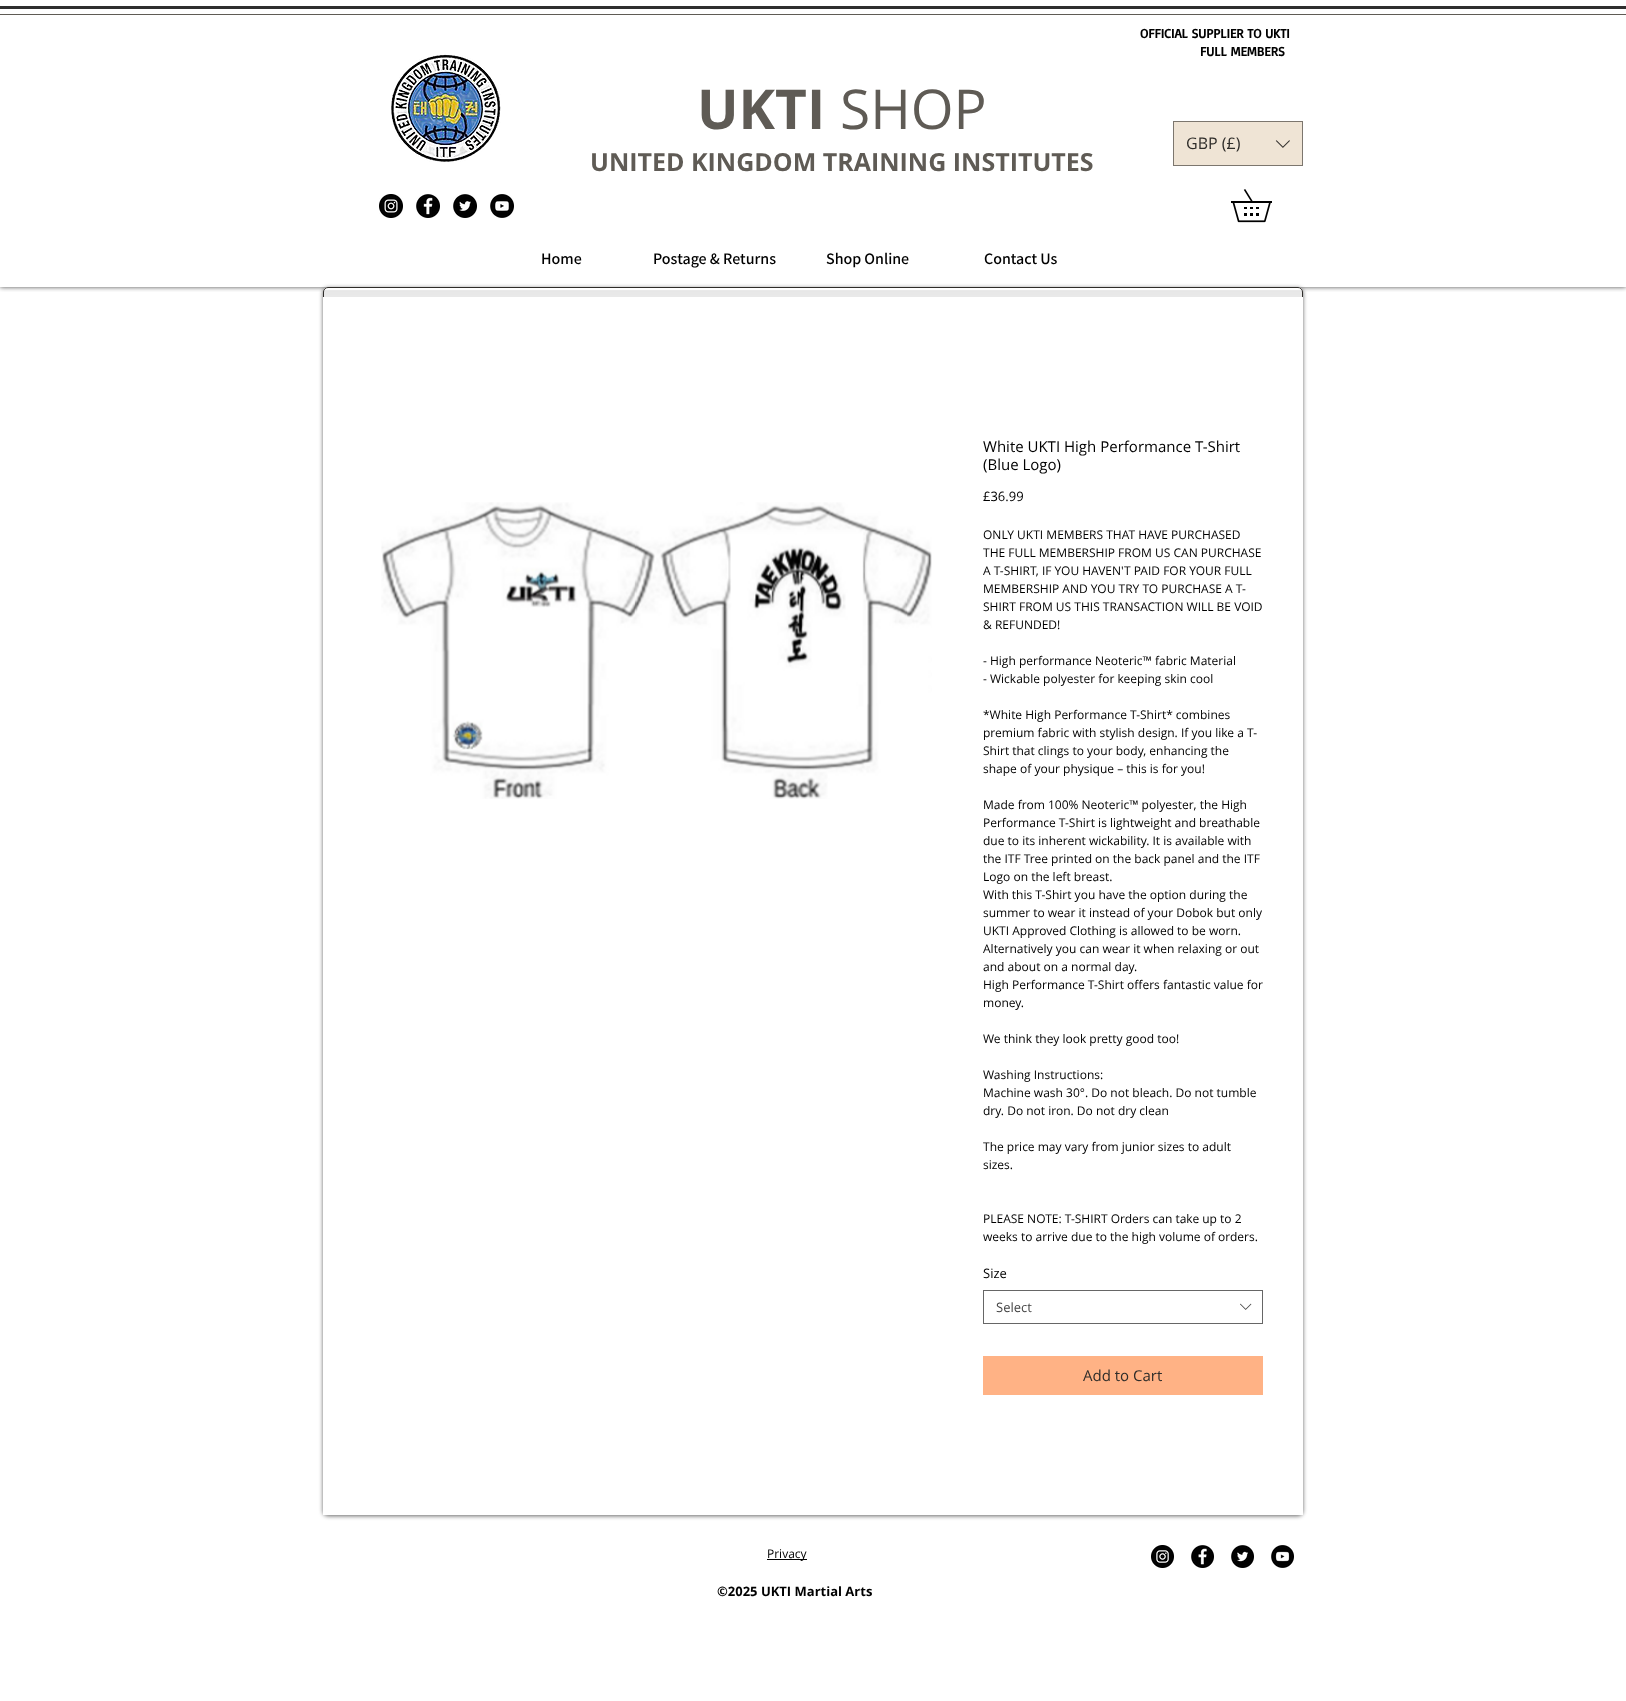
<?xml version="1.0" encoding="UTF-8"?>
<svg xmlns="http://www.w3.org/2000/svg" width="1626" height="1701">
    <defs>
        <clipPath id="clip1"><rect x="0" y="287" width="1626" height="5"/></clipPath>
        <filter id="blur1" x="-50%" y="-200%" width="200%" height="500%"><feGaussianBlur stdDeviation="2.5"/></filter>
        <filter id="blur2" x="-50%" y="-200%" width="200%" height="500%"><feGaussianBlur stdDeviation="2"/></filter>
    </defs>
    <rect width="100%" height="100%" fill="#FFFFFF"/>
    <g clip-path="url(#clip1)">
        <rect x="0" y="0" width="1626" height="287" fill="#000000" fill-opacity="0.7" filter="url(#blur1)"/>
    </g>
    <rect x="0" y="6" width="1626" height="3" fill="#2F2E2E"/>
    <rect x="0" y="14" width="1626" height="1" fill="#5F5B55"/>
    <text x="1140" y="38" font-family="Basic" font-size="13" font-weight="700" fill="#000000">OFFICIAL SUPPLIER TO UKTI</text>
    <text x="1200" y="56" font-family="Basic" font-size="13" font-weight="700" fill="#000000">FULL MEMBERS</text>
    <image x="391" y="54" width="110" height="108" href="img_01.png"/>
    <text x="697" y="129" font-family="Open Sans" font-size="55" font-weight="700" fill="#5F5B55">UKTI</text>
    <text x="840" y="129" font-family="Open Sans" font-size="55" fill="#5F5B55">SHOP</text>
    <rect x="1173.5" y="121.5" width="129" height="44" fill="#EFE4D5" stroke="#7C766E"/>
    <text x="1186" y="149" font-family="Open Sans" font-size="16" fill="#2F2D2A">GBP (£)</text>
    <image x="1275" y="140" width="15" height="8" href="img_02.png"/>
    <text x="590" y="171" font-family="Open Sans" font-size="25" font-weight="700" fill="#5F5B55">UNITED KINGDOM TRAINING INSTITUTES</text>
    <image x="379" y="194" width="24" height="24" href="img_03.png"/>
    <image x="416" y="194" width="24" height="24" href="img_04.png"/>
    <image x="453" y="194" width="24" height="24" href="img_05.png"/>
    <image x="490" y="194" width="24" height="24" href="img_06.png"/>
    <image x="1231" y="189" width="41" height="34" href="img_07.png"/>
    <text x="541" y="264" font-family="Assistant" font-size="16" font-weight="600" fill="#000000">Home</text>
    <text x="653" y="264" font-family="Assistant" font-size="16" font-weight="600" fill="#000000">Postage &amp; Returns</text>
    <text x="826" y="264" font-family="Assistant" font-size="16" font-weight="600" fill="#000000">Shop Online</text>
    <text x="984" y="264" font-family="Assistant" font-size="16" font-weight="600" fill="#000000">Contact Us</text>
    <rect x="323" y="288" width="980" height="1228" rx="5" fill="#000000" fill-opacity="0.6" filter="url(#blur2)"/>
    <rect x="323" y="287" width="980" height="1228" rx="5" fill="#FFFFFF"/>
    <image x="323" y="290" width="980" height="7" href="img_08.png"/>
    <rect x="323.5" y="287.5" width="979" height="1227" rx="4.5" fill="none" stroke="#2F2D2A"/>
    <rect x="323" y="297" width="980" height="1218" fill="#FFFFFF"/>
    <image x="381" y="502" width="551" height="297" href="img_09.png"/>
    <text font-family="Open Sans" font-size="15" fill="#000000">
        <tspan x="983" y="452">White UKTI High Performance T-Shirt</tspan>
        <tspan x="983" y="470">(Blue Logo)</tspan>
    </text>
    <text x="983" y="501" font-family="Open Sans" font-size="13" fill="#000000">£36.99</text>
    <text font-family="Open Sans" font-size="12" fill="#000000">
        <tspan x="983" y="539">ONLY UKTI MEMBERS THAT HAVE PURCHASED</tspan>
        <tspan x="983" y="557">THE FULL MEMBERSHIP FROM US CAN PURCHASE</tspan>
        <tspan x="983" y="575">A T-SHIRT, IF YOU HAVEN'T PAID FOR YOUR FULL</tspan>
        <tspan x="983" y="593">MEMBERSHIP AND YOU TRY TO PURCHASE A T-</tspan>
        <tspan x="983" y="611">SHIRT FROM US THIS TRANSACTION WILL BE VOID</tspan>
        <tspan x="983" y="629">&amp; REFUNDED!</tspan>
    </text>
    <text font-family="Open Sans" font-size="12" fill="#000000">
        <tspan x="983" y="665">- High performance Neoteric™ fabric Material</tspan>
        <tspan x="983" y="683">- Wickable polyester for keeping skin cool</tspan>
    </text>
    <text font-family="Open Sans" font-size="12" fill="#000000">
        <tspan x="983" y="719">*White High Performance T-Shirt* combines</tspan>
        <tspan x="983" y="737">premium fabric with stylish design. If you like a T-</tspan>
        <tspan x="983" y="755">Shirt that clings to your body, enhancing the</tspan>
        <tspan x="983" y="773">shape of your physique – this is for you!</tspan>
    </text>
    <text font-family="Open Sans" font-size="12" fill="#000000">
        <tspan x="983" y="809">Made from 100% Neoteric™ polyester, the High</tspan>
        <tspan x="983" y="827">Performance T-Shirt is lightweight and breathable</tspan>
        <tspan x="983" y="845">due to its inherent wickability. It is available with</tspan>
        <tspan x="983" y="863">the ITF Tree printed on the back panel and the ITF</tspan>
        <tspan x="983" y="881">Logo on the left breast.</tspan>
        <tspan x="983" y="899">With this T-Shirt you have the option during the</tspan>
        <tspan x="983" y="917">summer to wear it instead of your Dobok but only</tspan>
        <tspan x="983" y="935">UKTI Approved Clothing is allowed to be worn.</tspan>
        <tspan x="983" y="953">Alternatively you can wear it when relaxing or out</tspan>
        <tspan x="983" y="971">and about on a normal day.</tspan>
        <tspan x="983" y="989">High Performance T-Shirt offers fantastic value for</tspan>
        <tspan x="983" y="1007">money.</tspan>
    </text>
    <text x="983" y="1043" font-family="Open Sans" font-size="12" fill="#000000">We think they look pretty good too!</text>
    <text font-family="Open Sans" font-size="12" fill="#000000">
        <tspan x="983" y="1079">Washing Instructions:</tspan>
        <tspan x="983" y="1097">Machine wash 30°. Do not bleach. Do not tumble</tspan>
        <tspan x="983" y="1115">dry. Do not iron. Do not dry clean</tspan>
    </text>
    <text font-family="Open Sans" font-size="12" fill="#000000">
        <tspan x="983" y="1151">The price may vary from junior sizes to adult</tspan>
        <tspan x="983" y="1169">sizes.</tspan>
    </text>
    <text font-family="Open Sans" font-size="12" fill="#000000">
        <tspan x="983" y="1223">PLEASE NOTE: T-SHIRT Orders can take up to 2</tspan>
        <tspan x="983" y="1241">weeks to arrive due to the high volume of orders.</tspan>
    </text>
    <text x="983" y="1278" font-family="Open Sans" font-size="13" fill="#000000">Size</text>
    <rect x="983.5" y="1290.5" width="279" height="33" fill="none" stroke="#666666"/>
    <text x="996" y="1312" font-family="Open Sans" font-size="13" fill="#444444">Select</text>
    <image x="1240" y="1303" width="12" height="7" href="img_10.png"/>
    <rect x="983" y="1356" width="280" height="39" fill="#FFB285"/>
    <text x="1083" y="1381" font-family="Open Sans" font-size="15" fill="#2F2D2A">Add to Cart</text>
    <rect x="767" y="1559" width="40" height="1" fill="#000000"/>
    <text x="767" y="1558" font-family="Open Sans" font-size="12" fill="#000000">Privacy</text>
    <image x="1151" y="1545" width="23" height="23" href="img_11.png"/>
    <image x="1191" y="1545" width="23" height="23" href="img_12.png"/>
    <image x="1231" y="1545" width="23" height="23" href="img_13.png"/>
    <image x="1271" y="1545" width="23" height="23" href="img_14.png"/>
    <text x="717" y="1596" font-family="Open Sans" font-size="13" font-weight="700" fill="#000000">©2025 UKTI Martial Arts</text>
</svg>
